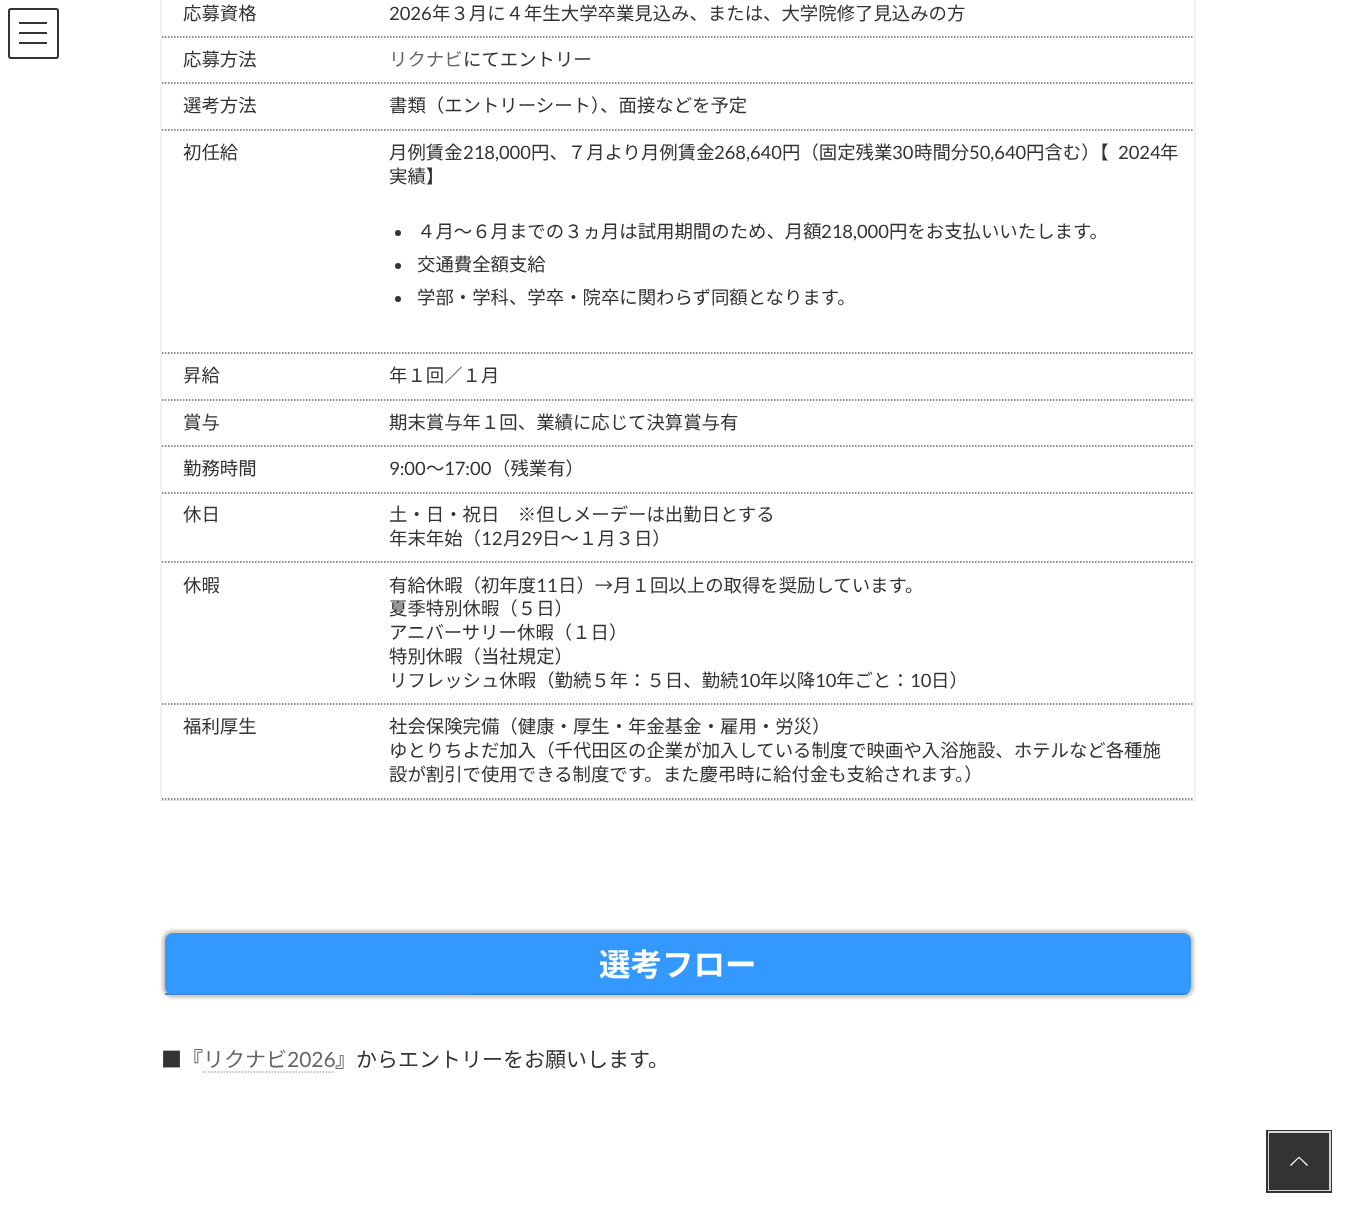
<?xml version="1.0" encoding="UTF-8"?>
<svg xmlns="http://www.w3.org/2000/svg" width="1356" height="1225">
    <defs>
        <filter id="blur1" x="-50%" y="-200%" width="200%" height="500%"><feGaussianBlur stdDeviation="1.5"/></filter>
    </defs>
    <rect width="100%" height="100%" fill="#FFFFFF"/>
    <rect x="19" y="22" width="28" height="2" fill="#333333"/>
    <rect x="19" y="32" width="28" height="2" fill="#333333"/>
    <rect x="19" y="42" width="28" height="2" fill="#333333"/>
    <rect x="9" y="9" width="49" height="49" rx="2" fill="none" stroke="#333333" stroke-width="2"/>
    <path d="M 1196 -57 V 801 L 1194 800 V -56 Z" fill="#F0F0F0"/>
    <path d="M 1196 801 H 160 L 162 800 H 1194 Z" fill="#DEE2E6"/>
    <path d="M 160 801 V -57 L 162 -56 V 800 Z" fill="#000000" fill-opacity="0.06"/>
    <path d="M 162 37 H 369" fill="none" stroke="#666666" stroke-width="1.5" stroke-dasharray="1.5 1.5"/>
    <text x="183" y="20" font-family="Noto Sans JP" font-size="18.4" fill="#333333">応募資格</text>
    <path d="M 369 37 H 1194" fill="none" stroke="#666666" stroke-width="1.5" stroke-dasharray="1.5 1.5"/>
    <text x="389" y="20" font-family="Lato" font-size="18.4" fill="#333333">2026</text>
    <text x="432" y="20" font-family="Noto Sans JP" font-size="18.4" fill="#333333">年３月に４年生大学卒業見込み、または、大学院修了見込みの方</text>
    <path d="M 162 83 H 369" fill="none" stroke="#666666" stroke-width="1.5" stroke-dasharray="1.5 1.5"/>
    <text x="183" y="66" font-family="Noto Sans JP" font-size="18.4" fill="#333333">応募方法</text>
    <path d="M 369 83 H 1194" fill="none" stroke="#666666" stroke-width="1.5" stroke-dasharray="1.5 1.5"/>
    <text x="389" y="66" font-family="Noto Sans JP" font-size="18.4" fill="#666666">リクナビ</text>
    <text x="463" y="66" font-family="Noto Sans JP" font-size="18.4" fill="#333333">にてエントリー</text>
    <path d="M 162 130 H 369" fill="none" stroke="#666666" stroke-width="1.5" stroke-dasharray="1.5 1.5"/>
    <text x="183" y="112" font-family="Noto Sans JP" font-size="18.4" fill="#333333">選考方法</text>
    <path d="M 369 130 H 1194" fill="none" stroke="#666666" stroke-width="1.5" stroke-dasharray="1.5 1.5"/>
    <text x="389" y="112" font-family="Noto Sans JP" font-size="18.4" fill="#333333">書類（エントリーシート）、面接などを予定</text>
    <path d="M 162 353 H 369" fill="none" stroke="#666666" stroke-width="1.5" stroke-dasharray="1.5 1.5"/>
    <text x="183" y="159" font-family="Noto Sans JP" font-size="18.4" fill="#333333">初任給</text>
    <path d="M 369 353 H 1194" fill="none" stroke="#666666" stroke-width="1.5" stroke-dasharray="1.5 1.5"/>
    <text x="389" y="159" font-family="Noto Sans JP" font-size="18.4" fill="#333333">月例賃金</text>
    <text x="463" y="159" font-family="Lato" font-size="18.4" fill="#333333">218,000</text>
    <text x="531" y="159" font-family="Noto Sans JP" font-size="18.4" fill="#333333">円、７月より月例賃金</text>
    <text x="714" y="159" font-family="Lato" font-size="18.4" fill="#333333">268,640</text>
    <text x="782" y="159" font-family="Noto Sans JP" font-size="18.4" fill="#333333">円（固定残業</text>
    <text x="892" y="159" font-family="Lato" font-size="18.4" fill="#333333">30</text>
    <text x="914" y="159" font-family="Noto Sans JP" font-size="18.4" fill="#333333">時間分</text>
    <text x="969" y="159" font-family="Lato" font-size="18.4" fill="#333333">50,640</text>
    <text x="1026" y="159" font-family="Noto Sans JP" font-size="18.4" fill="#333333">円含む）【</text>
    <text x="1118" y="159" font-family="Lato" font-size="18.4" fill="#333333">2024</text>
    <text x="1160" y="159" font-family="Noto Sans JP" font-size="18.4" fill="#333333">年</text>
    <text x="389" y="183" font-family="Noto Sans JP" font-size="18.4" fill="#333333">実績】</text>
    <circle cx="398" cy="233" r="3" fill="#333333"/>
    <text x="417" y="238" font-family="Noto Sans JP" font-size="18.4" fill="#333333">４月～６月までの３ヵ月は試用期間のため、月額</text>
    <text x="821" y="238" font-family="Lato" font-size="18.4" fill="#333333">218,000</text>
    <text x="889" y="238" font-family="Noto Sans JP" font-size="18.4" fill="#333333">円をお支払いいたします。</text>
    <circle cx="398" cy="266" r="3" fill="#333333"/>
    <text x="417" y="271" font-family="Noto Sans JP" font-size="18.4" fill="#333333">交通費全額支給</text>
    <circle cx="398" cy="299" r="3" fill="#333333"/>
    <text x="417" y="304" font-family="Noto Sans JP" font-size="18.4" fill="#333333">学部・学科、学卒・院卒に関わらず同額となります。</text>
    <path d="M 162 400 H 369" fill="none" stroke="#666666" stroke-width="1.5" stroke-dasharray="1.5 1.5"/>
    <text x="183" y="382" font-family="Noto Sans JP" font-size="18.4" fill="#333333">昇給</text>
    <path d="M 369 400 H 1194" fill="none" stroke="#666666" stroke-width="1.5" stroke-dasharray="1.5 1.5"/>
    <text x="389" y="382" font-family="Noto Sans JP" font-size="18.4" fill="#333333">年１回／１月</text>
    <path d="M 162 446 H 369" fill="none" stroke="#666666" stroke-width="1.5" stroke-dasharray="1.5 1.5"/>
    <text x="183" y="429" font-family="Noto Sans JP" font-size="18.4" fill="#333333">賞与</text>
    <path d="M 369 446 H 1194" fill="none" stroke="#666666" stroke-width="1.5" stroke-dasharray="1.5 1.5"/>
    <text x="389" y="429" font-family="Noto Sans JP" font-size="18.4" fill="#333333">期末賞与年１回、業績に応じて決算賞与有</text>
    <path d="M 162 493 H 369" fill="none" stroke="#666666" stroke-width="1.5" stroke-dasharray="1.5 1.5"/>
    <text x="183" y="475" font-family="Noto Sans JP" font-size="18.4" fill="#333333">勤務時間</text>
    <path d="M 369 493 H 1194" fill="none" stroke="#666666" stroke-width="1.5" stroke-dasharray="1.5 1.5"/>
    <text x="389" y="475" font-family="Lato" font-size="18.4" fill="#333333">9:00</text>
    <text x="426" y="475" font-family="Noto Sans JP" font-size="18.4" fill="#333333">～</text>
    <text x="444" y="475" font-family="Lato" font-size="18.4" fill="#333333">17:00</text>
    <text x="492" y="475" font-family="Noto Sans JP" font-size="18.4" fill="#333333">（残業有）</text>
    <path d="M 162 562 H 369" fill="none" stroke="#666666" stroke-width="1.5" stroke-dasharray="1.5 1.5"/>
    <text x="183" y="521" font-family="Noto Sans JP" font-size="18.4" fill="#333333">休日</text>
    <path d="M 369 562 H 1194" fill="none" stroke="#666666" stroke-width="1.5" stroke-dasharray="1.5 1.5"/>
    <text font-family="Noto Sans JP" font-size="18.4" fill="#333333">
        <tspan x="389" y="521">土・日・祝日　※但しメーデーは出勤日とする</tspan>
        <tspan x="389" y="545">年末年始（</tspan>
    </text>
    <text x="481" y="545" font-family="Lato" font-size="18.4" fill="#333333">12</text>
    <text x="503" y="545" font-family="Noto Sans JP" font-size="18.4" fill="#333333">月</text>
    <text x="521" y="545" font-family="Lato" font-size="18.4" fill="#333333">29</text>
    <text x="542" y="545" font-family="Noto Sans JP" font-size="18.4" fill="#333333">日～１月３日）</text>
    <path d="M 162 704 H 369" fill="none" stroke="#666666" stroke-width="1.5" stroke-dasharray="1.5 1.5"/>
    <text x="183" y="592" font-family="Noto Sans JP" font-size="18.4" fill="#333333">休暇</text>
    <path d="M 369 704 H 1194" fill="none" stroke="#666666" stroke-width="1.5" stroke-dasharray="1.5 1.5"/>
    <text x="389" y="592" font-family="Noto Sans JP" font-size="18.4" fill="#333333">有給休暇（初年度</text>
    <text x="536" y="592" font-family="Lato" font-size="18.4" fill="#333333">11</text>
    <text x="558" y="592" font-family="Noto Sans JP" font-size="18.4" fill="#333333">日）→月１回以上の取得を奨励しています。</text>
    <text font-family="Noto Sans JP" font-size="18.4" fill="#333333">
        <tspan x="389" y="615">夏季特別休暇（５日）</tspan>
        <tspan x="389" y="639">アニバーサリー休暇（１日）</tspan>
        <tspan x="389" y="663">特別休暇（当社規定）</tspan>
        <tspan x="389" y="687">リフレッシュ休暇（勤続５年：５日、勤続</tspan>
    </text>
    <text x="739" y="687" font-family="Lato" font-size="18.4" fill="#333333">10</text>
    <text x="760" y="687" font-family="Noto Sans JP" font-size="18.4" fill="#333333">年以降</text>
    <text x="815" y="687" font-family="Lato" font-size="18.4" fill="#333333">10</text>
    <text x="836" y="687" font-family="Noto Sans JP" font-size="18.4" fill="#333333">年ごと：</text>
    <text x="910" y="687" font-family="Lato" font-size="18.4" fill="#333333">10</text>
    <text x="931" y="687" font-family="Noto Sans JP" font-size="18.4" fill="#333333">日）</text>
    <path d="M 162 799 H 369" fill="none" stroke="#666666" stroke-width="1.5" stroke-dasharray="1.5 1.5"/>
    <text x="183" y="733" font-family="Noto Sans JP" font-size="18.4" fill="#333333">福利厚生</text>
    <path d="M 369 799 H 1194" fill="none" stroke="#666666" stroke-width="1.5" stroke-dasharray="1.5 1.5"/>
    <text font-family="Noto Sans JP" font-size="18.4" fill="#333333">
        <tspan x="389" y="733">社会保険完備（健康・厚生・年金基金・雇用・労災）</tspan>
        <tspan x="389" y="757">ゆとりちよだ加入（千代田区の企業が加入している制度で映画や入浴施設、ホテルなど各種施</tspan>
        <tspan x="389" y="781">設が割引で使用できる制度です。また慶弔時に給付金も支給されます。）</tspan>
    </text>
    <rect x="162" y="930" width="1032" height="68" rx="11" fill="#CFC9BD" filter="url(#blur1)"/>
    <rect x="165" y="933" width="1026" height="62" rx="8" fill="#3399FF"/>
    <rect x="473" y="993" width="715" height="2" fill="#000000" fill-opacity="0.12"/>
    <text x="599" y="976" font-family="Noto Sans JP" font-size="31.5" font-weight="700" fill="#FFFFFF">選考フロー</text>
    <rect x="165" y="993" width="308" height="2" fill="#4786ED"/>
    <text x="161" y="1067" font-family="Noto Sans JP" font-size="21" fill="#333333">■『</text>
    <text x="203" y="1067" font-family="Noto Sans JP" font-size="21" fill="#666666">リクナビ</text>
    <text x="287" y="1067" font-family="Lato" font-size="21" fill="#666666">2026</text>
    <path d="M 202.5 1072 H 335" fill="none" stroke="#B3B3B3" stroke-width="1.5" stroke-dasharray="1.5 1.5"/>
    <text x="335" y="1067" font-family="Noto Sans JP" font-size="21" fill="#333333">』からエントリーをお願いします。</text>
    <rect x="1267.5" y="1131.5" width="63" height="60" fill="none" stroke="#333333" stroke-width="3"/>
    <rect x="1269" y="1132" width="61" height="58" fill="none" stroke="#FFFFFF" stroke-opacity="0.8" stroke-width="2"/>
    <rect x="1269" y="1133" width="60" height="57" fill="#333333"/>
    <path d="M 1308 1165 L 1307 1166 L 1299 1158 L 1291 1166 L 1290 1165 L 1299 1156.5 Z" fill="#FFFFFF"/>
</svg>
